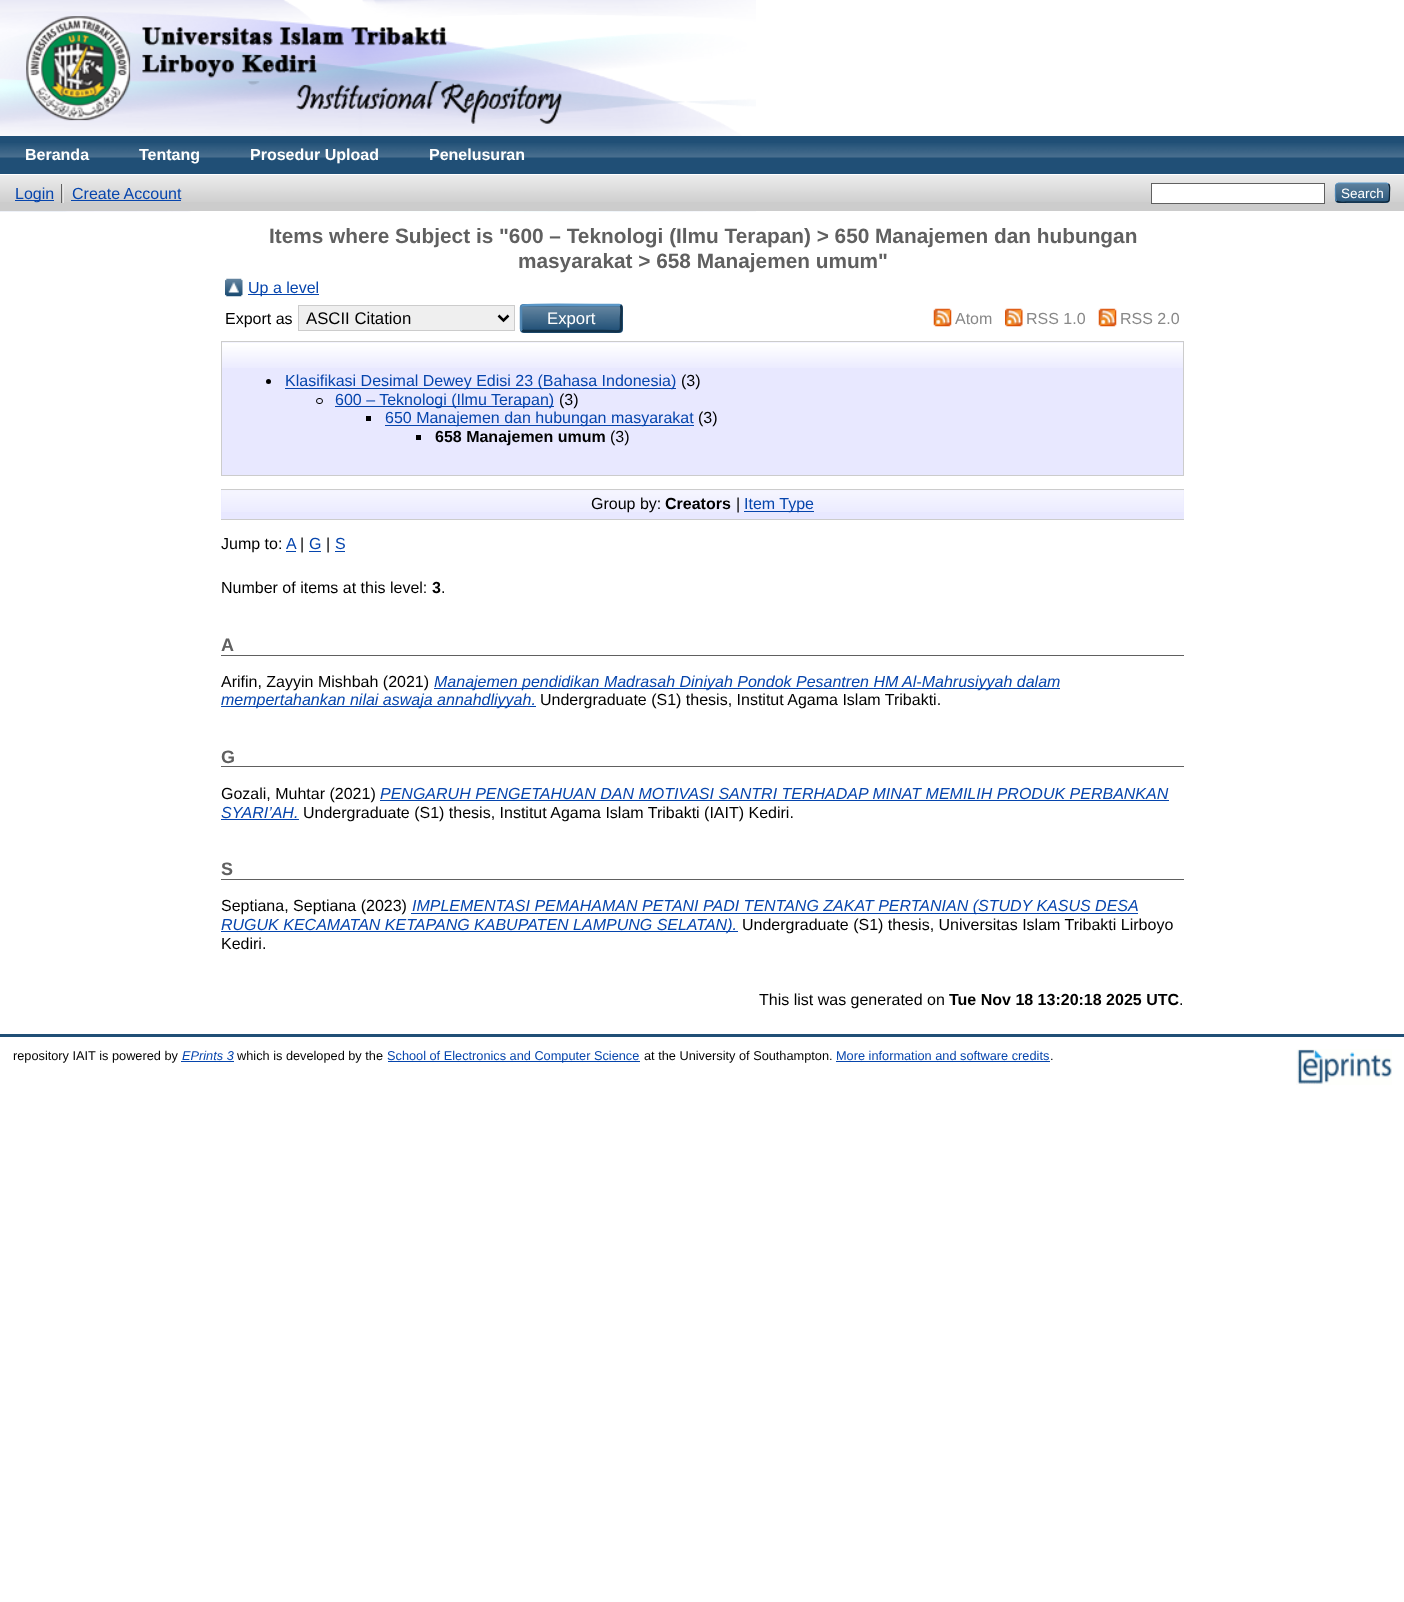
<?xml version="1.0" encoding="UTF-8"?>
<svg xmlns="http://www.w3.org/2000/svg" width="1404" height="1602">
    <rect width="100%" height="100%" fill="#FFFFFF"/>
    <image x="0" y="0" width="756" height="212" href="img_01.png"/>
    <image x="26" y="16" width="536" height="108" href="img_02.png"/>
    <rect x="0" y="136" width="1404" height="38" fill="#204F76"/>
    <image x="0" y="143" width="1404" height="15" href="img_03.png"/>
    <rect x="0" y="174" width="756" height="1" fill="#FFFFFF"/>
    <text x="25" y="160" font-family="Liberation Sans" font-size="16" font-weight="700" fill="#FFFFFF">Beranda</text>
    <text x="139" y="160" font-family="Liberation Sans" font-size="16" font-weight="700" fill="#FFFFFF">Tentang</text>
    <text x="250" y="160" font-family="Liberation Sans" font-size="16" font-weight="700" fill="#FFFFFF">Prosedur Upload</text>
    <text x="429" y="160" font-family="Liberation Sans" font-size="16" font-weight="700" fill="#FFFFFF">Penelusuran</text>
    <rect x="0" y="175" width="1404" height="36" fill="#CCCCCC"/>
    <image x="0" y="175" width="1404" height="27" href="img_04.png"/>
    <rect x="15" y="200" width="39" height="1" fill="#0645AD"/>
    <text x="15" y="199" font-family="Liberation Sans" font-size="16" fill="#0645AD">Login</text>
    <rect x="61" y="184" width="1" height="19" fill="#606060"/>
    <text x="72" y="199" font-family="Liberation Sans" font-size="16" fill="#0645AD">Create Account</text>
    <rect x="63" y="184" width="1" height="19" fill="#E8E8E8"/>
    <rect x="71" y="200" width="110" height="1" fill="#0645AD"/>
    <rect x="1151.5" y="183.5" width="173" height="20" fill="#FFFFFF" stroke="#606060"/>
    <rect x="1335" y="183" width="55" height="20" rx="4" fill="#1F4F76"/>
    <image x="1335" y="183" width="55" height="19" href="img_05.png"/>
    <path d="M 1336.5 184 L 1338.5 183 H 1386.5 L 1388.5 184" fill="none" stroke="#5B97C7" stroke-width="1.2"/>
    <path d="M 1388.5 184 C 1390.5 186 1389.5 190 1389.5 192.5 C 1389.5 203.5 1390 202 1378.5 202 H 1346.5 C 1346 202 1338.5 203 1336.5 201" fill="none" stroke="#0D2131" stroke-width="1.2"/>
    <path d="M 1336.5 201 C 1335 199 1335.5 194.5 1335.5 192.5 C 1335.5 190.5 1335 186 1336.5 184" fill="none" stroke="#5287B3" stroke-width="1.2"/>
    <text x="1341" y="198" font-family="Liberation Sans" font-size="13.5" fill="#FFFFFF">Search</text>
    <text x="269" y="243" font-family="Liberation Sans" font-size="20.8" font-weight="700" fill="#606060">Items where Subject is "600 – Teknologi (Ilmu Terapan) &gt; 650 Manajemen dan hubungan</text>
    <text x="518" y="268" font-family="Liberation Sans" font-size="20.8" font-weight="700" fill="#606060">masyarakat &gt; 658 Manajemen umum"</text>
    <image x="225" y="278" width="18" height="19" href="img_06.png"/>
    <rect x="248" y="294" width="71" height="1" fill="#0645AD"/>
    <text x="248" y="293" font-family="Liberation Sans" font-size="16" fill="#0645AD">Up a level</text>
    <text x="225" y="324" font-family="Liberation Sans" font-size="16" fill="#000000">Export as</text>
    <rect x="298.5" y="305.5" width="216" height="25" fill="#EFEFEF" stroke="#CCCCCC"/>
    <path d="M 498.5 315.5 L 503.5 320.5 L 508.5 315.5" fill="none" stroke="#000000" stroke-width="2.5"/>
    <text x="306" y="324" font-family="Liberation Sans" font-size="16.75" fill="#000000">ASCII Citation</text>
    <rect x="520" y="304" width="103" height="29" rx="4" fill="#1F4F76"/>
    <image x="520" y="306" width="103" height="24" href="img_07.png"/>
    <path d="M 522 305.5 H 522.5 C 524.5 304 594.5 305 603 305 H 619 L 620.5 305.5" fill="none" stroke="#5B97C7" stroke-width="2.5"/>
    <path d="M 620.5 305.5 C 622.5 307.5 621 315.5 621 318 C 621 335.5 623.5 331 603 331 H 524 L 522 330.5" fill="none" stroke="#13324A" stroke-width="2.5"/>
    <path d="M 522 330.5 C 521.5 330 521 329.5 521 329 V 307.5 C 521 307 521.5 306 522 305.5" fill="none" stroke="#5287B3" stroke-width="2.5"/>
    <text x="547" y="324" font-family="Liberation Sans" font-size="16.75" fill="#FFFFFF">Export</text>
    <image x="933" y="308" width="19" height="19" href="img_08.png"/>
    <text x="955" y="324" font-family="Liberation Sans" font-size="16" fill="#888888">Atom</text>
    <image x="1005" y="308" width="18" height="19" href="img_09.png"/>
    <text x="1026" y="324" font-family="Liberation Sans" font-size="16" fill="#888888">RSS 1.0</text>
    <image x="1098" y="308" width="19" height="19" href="img_08.png"/>
    <text x="1120" y="324" font-family="Liberation Sans" font-size="16" fill="#888888">RSS 2.0</text>
    <rect x="222" y="342" width="961" height="133" fill="#E8E8FF"/>
    <image x="222" y="342" width="961" height="26" href="img_10.png"/>
    <rect x="221.5" y="341.5" width="962" height="134" fill="none" stroke="#CCCCCC"/>
    <circle cx="268.5" cy="381.5" r="2.5" fill="#000000"/>
    <rect x="285" y="388" width="391" height="1" fill="#0645AD"/>
    <text x="285" y="386" font-family="Liberation Sans" font-size="16" fill="#0645AD">Klasifikasi Desimal Dewey Edisi 23 (Bahasa Indonesia)</text>
    <text x="681" y="386" font-family="Liberation Sans" font-size="16" fill="#000000">(3)</text>
    <rect x="316.5" y="398.5" width="6" height="5" rx="2.5" fill="none" stroke="#000000"/>
    <rect x="335" y="406" width="219" height="1" fill="#0645AD"/>
    <text x="335" y="405" font-family="Liberation Sans" font-size="16" fill="#0645AD">600 – Teknologi (Ilmu Terapan)</text>
    <text x="559" y="405" font-family="Liberation Sans" font-size="16" fill="#000000">(3)</text>
    <rect x="366" y="416" width="5" height="5" fill="#000000"/>
    <rect x="385" y="425" width="309" height="1" fill="#0645AD"/>
    <text x="385" y="423" font-family="Liberation Sans" font-size="16" fill="#0645AD">650 Manajemen dan hubungan masyarakat</text>
    <text x="698" y="423" font-family="Liberation Sans" font-size="16" fill="#000000">(3)</text>
    <rect x="416" y="435" width="5" height="5" fill="#000000"/>
    <text x="435" y="442" font-family="Liberation Sans" font-size="16" font-weight="700" fill="#000000">658 Manajemen umum</text>
    <text x="610" y="442" font-family="Liberation Sans" font-size="16" fill="#000000">(3)</text>
    <rect x="221" y="490" width="963" height="29" fill="#E8E8FF"/>
    <image x="221" y="490" width="963" height="22" href="img_11.png"/>
    <rect x="221" y="489" width="963" height="1" fill="#CCCCCC"/>
    <rect x="221" y="519" width="963" height="1" fill="#CCCCCC"/>
    <text x="591" y="509" font-family="Liberation Sans" font-size="16" fill="#000000">Group by:</text>
    <text x="665" y="509" font-family="Liberation Sans" font-size="16" font-weight="700" fill="#000000">Creators</text>
    <text x="736" y="509" font-family="Liberation Sans" font-size="16" fill="#000000">|</text>
    <rect x="744" y="511" width="70" height="1" fill="#0645AD"/>
    <text x="744" y="509" font-family="Liberation Sans" font-size="16" fill="#0645AD">Item Type</text>
    <text x="221" y="549" font-family="Liberation Sans" font-size="16" fill="#000000">Jump to:</text>
    <text x="286" y="549" font-family="Liberation Sans" font-size="16" fill="#0645AD">A</text>
    <rect x="286" y="551" width="10" height="1" fill="#0645AD"/>
    <text x="300" y="549" font-family="Liberation Sans" font-size="16" fill="#000000">|</text>
    <text x="309" y="549" font-family="Liberation Sans" font-size="16" fill="#0645AD">G</text>
    <rect x="309" y="551" width="12" height="1" fill="#0645AD"/>
    <text x="326" y="549" font-family="Liberation Sans" font-size="16" fill="#000000">|</text>
    <text x="335" y="549" font-family="Liberation Sans" font-size="16" fill="#0645AD">S</text>
    <rect x="335" y="551" width="10" height="1" fill="#0645AD"/>
    <text x="221" y="593" font-family="Liberation Sans" font-size="16" fill="#000000">Number of items at this level:</text>
    <text x="432" y="593" font-family="Liberation Sans" font-size="16" font-weight="700" fill="#000000">3</text>
    <text x="441" y="593" font-family="Liberation Sans" font-size="16" fill="#000000">.</text>
    <rect x="221" y="655" width="963" height="1" fill="#606060"/>
    <text x="221" y="651" font-family="Liberation Sans" font-size="18" font-weight="700" fill="#606060">A</text>
    <text x="221" y="687" font-family="Liberation Sans" font-size="16" fill="#000000">Arifin, Zayyin Mishbah (2021)</text>
    <rect x="434" y="688" width="626" height="1" fill="#0645AD"/>
    <text x="434" y="687" font-family="Liberation Sans" font-size="16" font-style="italic" fill="#0645AD">Manajemen pendidikan Madrasah Diniyah Pondok Pesantren HM Al-Mahrusiyyah dalam</text>
    <rect x="221" y="706" width="315" height="1" fill="#0645AD"/>
    <text x="221" y="705" font-family="Liberation Sans" font-size="16" font-style="italic" fill="#0645AD">mempertahankan nilai aswaja annahdliyyah.</text>
    <text x="540" y="705" font-family="Liberation Sans" font-size="16" fill="#000000">Undergraduate (S1) thesis, Institut Agama Islam Tribakti.</text>
    <rect x="221" y="766" width="963" height="1" fill="#606060"/>
    <text x="221" y="763" font-family="Liberation Sans" font-size="18" font-weight="700" fill="#606060">G</text>
    <text x="221" y="799" font-family="Liberation Sans" font-size="16" fill="#000000">Gozali, Muhtar (2021)</text>
    <text x="380" y="799" font-family="Liberation Sans" font-size="16" font-style="italic" fill="#0645AD">PENGARUH PENGETAHUAN DAN MOTIVASI SANTRI TERHADAP MINAT MEMILIH PRODUK PERBANKAN</text>
    <rect x="380" y="800" width="789" height="1" fill="#0645AD"/>
    <text x="221" y="818" font-family="Liberation Sans" font-size="16" font-style="italic" fill="#0645AD">SYARI’AH.</text>
    <rect x="221" y="819" width="78" height="1" fill="#0645AD"/>
    <text x="303" y="818" font-family="Liberation Sans" font-size="16" fill="#000000">Undergraduate (S1) thesis, Institut Agama Islam Tribakti (IAIT) Kediri.</text>
    <rect x="221" y="879" width="963" height="1" fill="#606060"/>
    <text x="221" y="875" font-family="Liberation Sans" font-size="18" font-weight="700" fill="#606060">S</text>
    <text x="221" y="911" font-family="Liberation Sans" font-size="16" fill="#000000">Septiana, Septiana (2023)</text>
    <rect x="411" y="913" width="727" height="1" fill="#0645AD"/>
    <text x="412" y="911" font-family="Liberation Sans" font-size="16" font-style="italic" fill="#0645AD">IMPLEMENTASI PEMAHAMAN PETANI PADI TENTANG ZAKAT PERTANIAN (STUDY KASUS DESA</text>
    <rect x="221" y="931" width="517" height="1" fill="#0645AD"/>
    <text x="221" y="930" font-family="Liberation Sans" font-size="16" font-style="italic" fill="#0645AD">RUGUK KECAMATAN KETAPANG KABUPATEN LAMPUNG SELATAN).</text>
    <text x="742" y="930" font-family="Liberation Sans" font-size="16" fill="#000000">Undergraduate (S1) thesis, Universitas Islam Tribakti Lirboyo</text>
    <text x="221" y="949" font-family="Liberation Sans" font-size="16" fill="#000000">Kediri.</text>
    <text x="759" y="1005" font-family="Liberation Sans" font-size="16" fill="#000000">This list was generated on</text>
    <text x="949" y="1005" font-family="Liberation Sans" font-size="16" font-weight="700" fill="#000000">Tue Nov 18 13:20:18 2025 UTC</text>
    <text x="1179" y="1005" font-family="Liberation Sans" font-size="16" fill="#000000">.</text>
    <rect x="0" y="1034" width="1404" height="3" fill="#204F76"/>
    <text x="13" y="1060" font-family="Liberation Sans" font-size="12.75" fill="#000000">repository IAIT is powered by</text>
    <text x="182" y="1060" font-family="Liberation Sans" font-size="12.75" font-style="italic" fill="#0645AD">EPrints 3</text>
    <rect x="181" y="1061" width="53" height="1" fill="#0645AD"/>
    <text x="237" y="1060" font-family="Liberation Sans" font-size="12.75" fill="#000000">which is developed by the</text>
    <rect x="388" y="1061" width="252" height="1" fill="#0645AD"/>
    <text x="387" y="1060" font-family="Liberation Sans" font-size="12.75" fill="#0645AD">School of Electronics and Computer Science</text>
    <text x="644" y="1060" font-family="Liberation Sans" font-size="12.75" fill="#000000">at the University of Southampton.</text>
    <text x="836" y="1060" font-family="Liberation Sans" font-size="12.75" fill="#0645AD">More information and software credits</text>
    <rect x="836" y="1061" width="214" height="1" fill="#0645AD"/>
    <text x="1050" y="1060" font-family="Liberation Sans" font-size="12.75" fill="#000000">.</text>
    <image x="1296" y="1049" width="96" height="36" href="img_12.png"/>
</svg>
